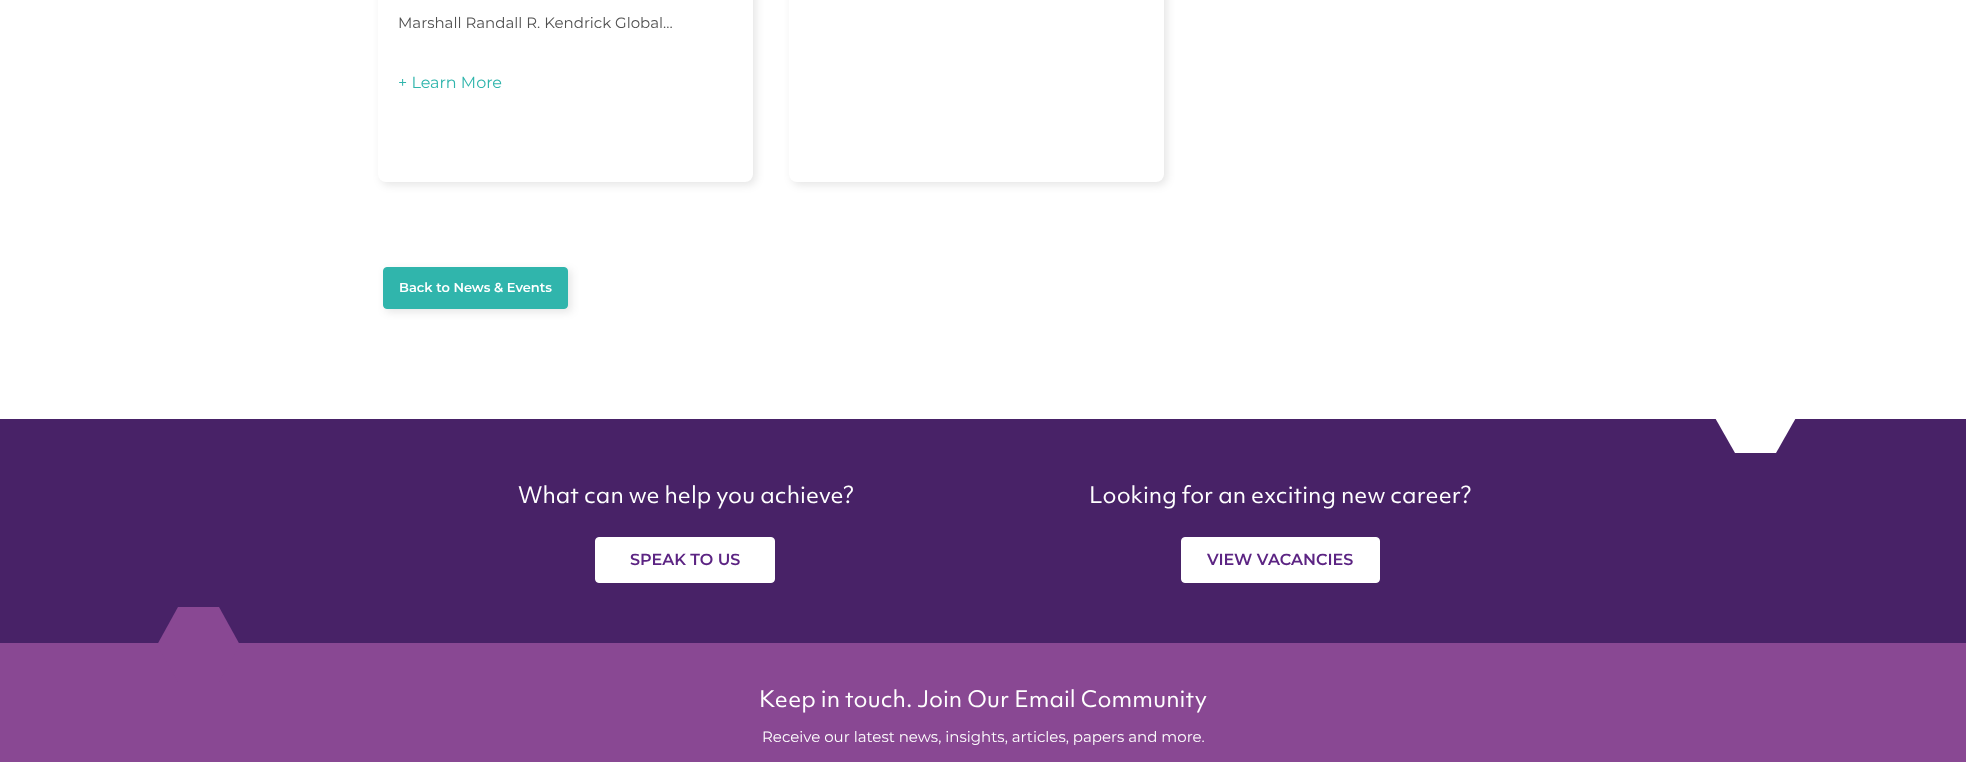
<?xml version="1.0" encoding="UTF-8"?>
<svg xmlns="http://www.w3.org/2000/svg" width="1966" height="762">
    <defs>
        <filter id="blur1" x="-50%" y="-200%" width="200%" height="500%"><feGaussianBlur stdDeviation="4.5"/></filter>
    </defs>
    <rect width="100%" height="100%" fill="#FFFFFF"/>
    <rect x="381" y="-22" width="375" height="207" rx="8" fill="#000000" fill-opacity="0.1" filter="url(#blur1)"/>
    <rect x="378" y="-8" width="375" height="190" rx="8" fill="#FFFFFF"/>
    <text x="398" y="28" font-family="Montserrat" font-size="15" fill="#515151">Marshall Randall R. Kendrick Global…</text>
    <text x="398" y="88" font-family="Montserrat" font-size="16" fill="#30B5AC">+ Learn More</text>
    <rect x="792" y="-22" width="375" height="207" rx="8" fill="#000000" fill-opacity="0.1" filter="url(#blur1)"/>
    <rect x="789" y="-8" width="375" height="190" rx="8" fill="#FFFFFF"/>
    <rect x="386" y="270" width="185" height="42" fill="#000000" fill-opacity="0.1" filter="url(#blur1)"/>
    <rect x="383.5" y="267.5" width="184" height="41" rx="3.5" fill="#30B5AC" stroke="#30B5AC"/>
    <text x="399" y="292" font-family="Montserrat" font-size="13" font-weight="600" fill="#FFFFFF">Back to News &amp; Events</text>
    <rect x="0" y="419" width="1966" height="224" fill="#482267"/>
    <path d="M 1735 378 L 1714 416 L 1735 453 H 1776 L 1797 416 L 1776 378 Z" fill="#FFFFFF"/>
    <text x="518" y="503" font-family="'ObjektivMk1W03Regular'" font-size="22" fill="#FFFFFF">What can we help you achieve?</text>
    <rect x="595.5" y="537.5" width="179" height="45" rx="3.5" fill="#FFFFFF" stroke="#FFFFFF"/>
    <text x="630" y="565" font-family="Montserrat" font-size="16" font-weight="600" fill="#5C2483">SPEAK TO US</text>
    <text x="1089" y="503" font-family="'ObjektivMk1W03Regular'" font-size="22" fill="#FFFFFF">Looking for an exciting new career?</text>
    <rect x="1181.5" y="537.5" width="198" height="45" rx="3.5" fill="#FFFFFF" stroke="#FFFFFF"/>
    <text x="1207" y="565" font-family="Montserrat" font-size="16" font-weight="600" fill="#5C2483">VIEW VACANCIES</text>
    <rect x="0" y="643" width="1966" height="119" fill="#894893"/>
    <path d="M 178 607 L 157 645 L 178 682 H 219 L 240 645 L 219 607 Z" fill="#894893"/>
    <text x="759" y="707" font-family="'ObjektivMk1W03Regular'" font-size="22" fill="#FFFFFF">Keep in touch. Join Our Email Community</text>
    <text x="762" y="742" font-family="Montserrat" font-size="15" fill="#FFFFFF">Receive our latest news, insights, articles, papers and more.</text>
</svg>
